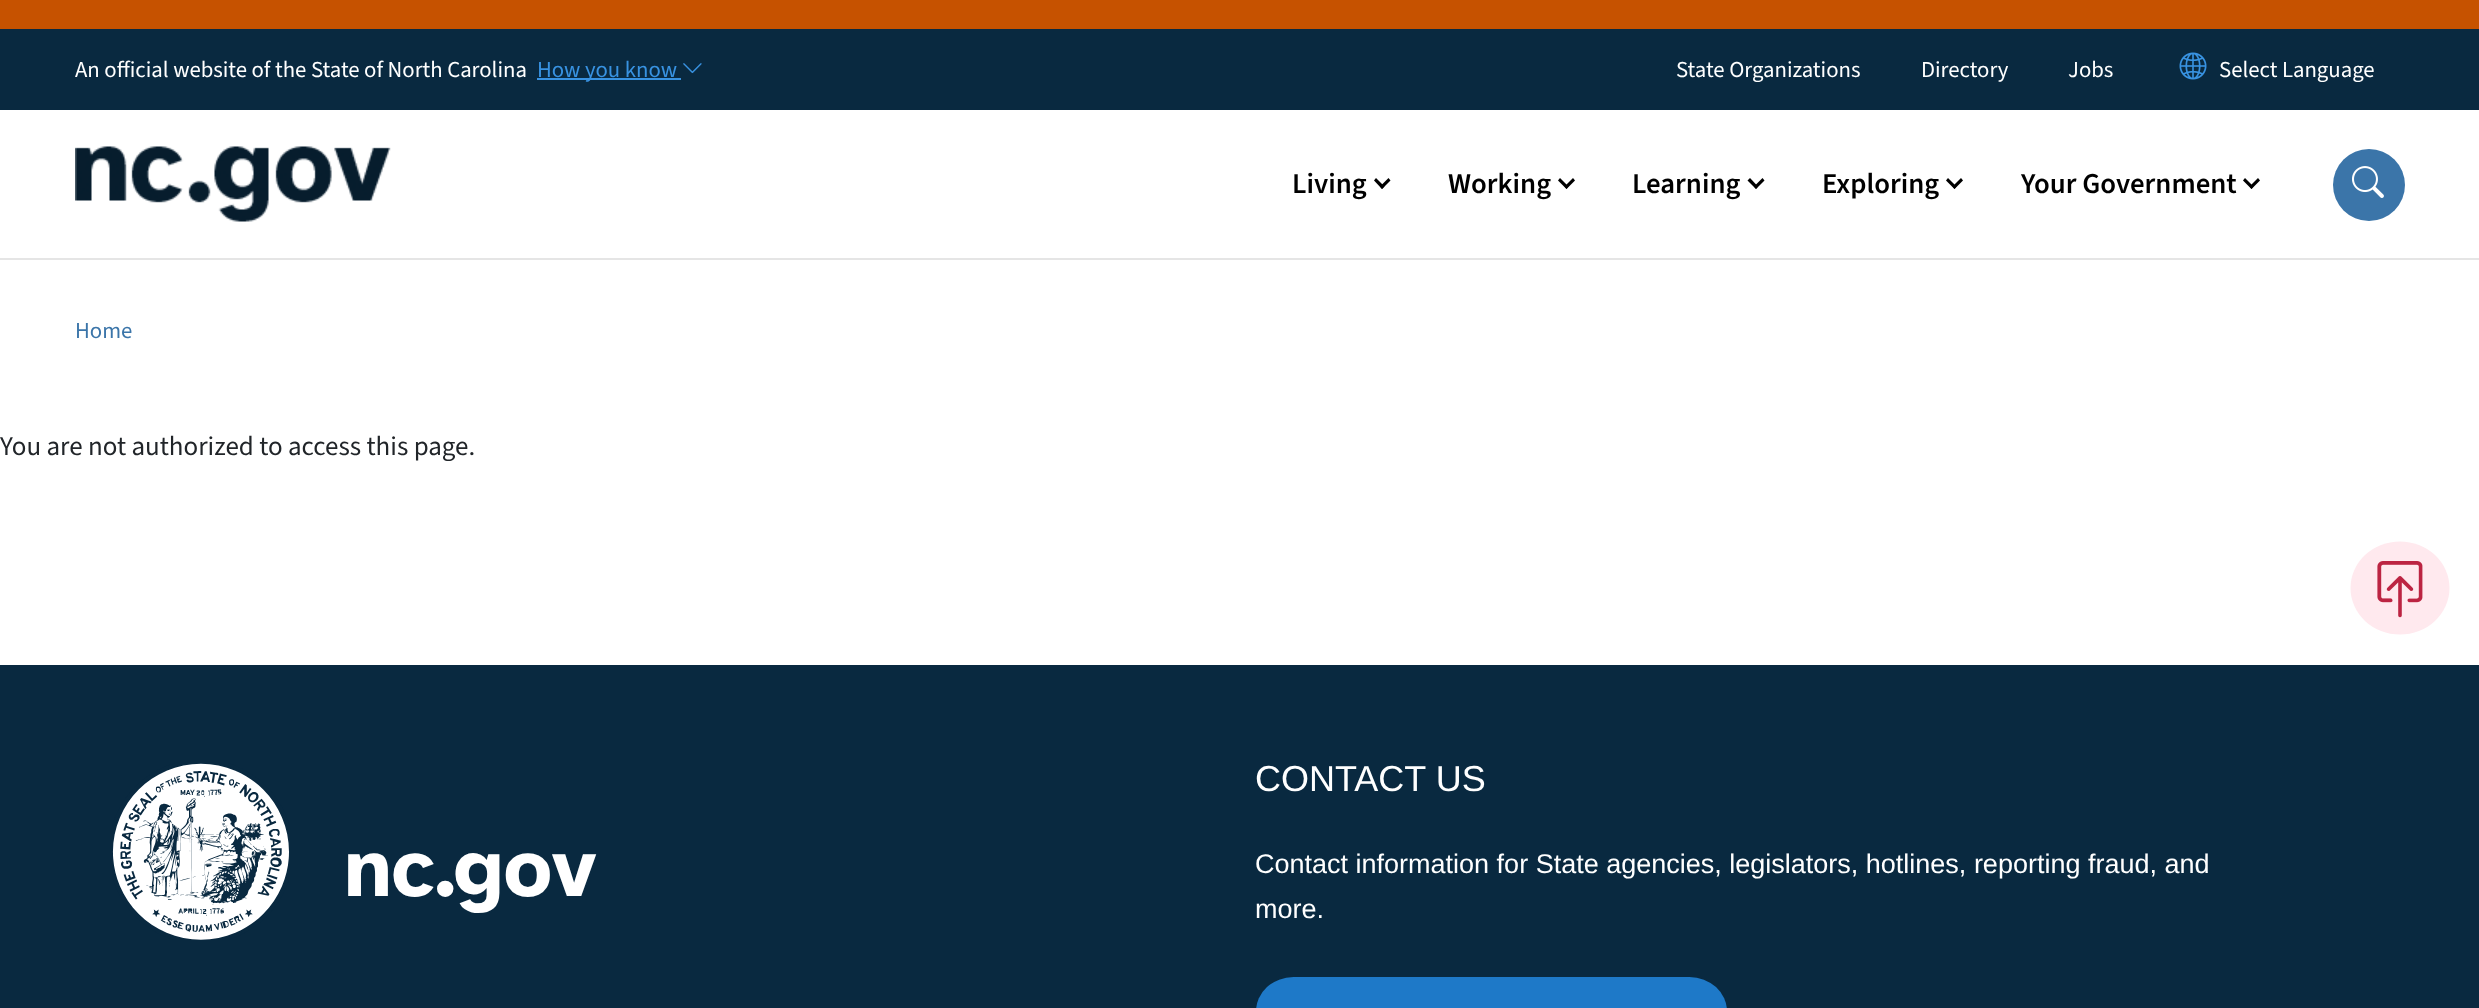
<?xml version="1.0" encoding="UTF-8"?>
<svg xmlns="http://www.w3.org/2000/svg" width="2479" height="1008">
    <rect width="100%" height="100%" fill="#FFFFFF"/>
    <rect x="0" y="258" width="2479" height="2" fill="#E5E5E5"/>
    <rect x="0" y="0" width="2479" height="29" fill="#C65200"/>
    <rect x="0" y="29" width="2479" height="81" fill="#092940"/>
    <text x="75" y="77" font-family="'Source Sans 3'" font-size="22.75" fill="#FFFFFF">An official website of the State of North Carolina</text>
    <rect x="537" y="78" width="144" height="2" fill="#3892E1"/>
    <text x="537" y="77" font-family="'Source Sans 3'" font-size="22.75" fill="#3892E1">How you know</text>
    <image x="683" y="63" width="19" height="11" href="img_01.png"/>
    <text x="1676" y="77" font-family="'Source Sans 3'" font-size="22.75" fill="#FFFFFF">State Organizations</text>
    <text x="1921" y="77" font-family="'Source Sans 3'" font-size="22.75" fill="#FFFFFF">Directory</text>
    <text x="2068" y="77" font-family="'Source Sans 3'" font-size="22.75" fill="#FFFFFF">Jobs</text>
    <image x="2179" y="52" width="28" height="28" href="img_02.png"/>
    <text x="2219" y="77" font-family="'Source Sans 3'" font-size="22.75" fill="#FFFFFF">Select Language</text>
    <image x="75" y="146" width="316" height="76" href="img_03.png"/>
    <text x="1292" y="193" font-family="'Source Sans 3'" font-size="28.75" font-weight="600" fill="#000000">Living</text>
    <path d="M 1388.5 178 L 1390.5 180.5 L 1382 189 L 1380 186.5 Z" fill="#000000"/>
    <path d="M 1376 178 L 1384.5 186.5 L 1382 189 L 1374 180.5 Z" fill="#000000"/>
    <text x="1448" y="193" font-family="'Source Sans 3'" font-size="28.75" font-weight="600" fill="#000000">Working</text>
    <path d="M 1573 178 L 1575 180.5 L 1566.5 189 L 1564.5 186.5 Z" fill="#000000"/>
    <path d="M 1560 178 L 1568.5 186.5 L 1566.5 189 L 1558 180.5 Z" fill="#000000"/>
    <text x="1632" y="193" font-family="'Source Sans 3'" font-size="28.75" font-weight="600" fill="#000000">Learning</text>
    <path d="M 1762.5 178 L 1764.5 180.5 L 1756 189 L 1754 186.5 Z" fill="#000000"/>
    <path d="M 1750 178 L 1758 186.5 L 1756 189 L 1747.5 180.5 Z" fill="#000000"/>
    <text x="1822" y="193" font-family="'Source Sans 3'" font-size="28.75" font-weight="600" fill="#000000">Exploring</text>
    <path d="M 1961 178 L 1963 180.5 L 1954.5 189 L 1952.5 186.5 Z" fill="#000000"/>
    <path d="M 1948 178 L 1956.5 186.5 L 1954.5 189 L 1946 180.5 Z" fill="#000000"/>
    <text x="2021" y="193" font-family="'Source Sans 3'" font-size="28.75" font-weight="600" fill="#000000">Your Government</text>
    <path d="M 2258 178 L 2260 180.5 L 2251.5 189 L 2249.5 186.5 Z" fill="#000000"/>
    <path d="M 2245 178 L 2253.5 186.5 L 2251.5 189 L 2243 180.5 Z" fill="#000000"/>
    <circle cx="2369" cy="185" r="36" fill="#3B75A9"/>
    <image x="2352" y="166" width="32" height="32" href="img_04.png"/>
    <text x="75" y="338" font-family="'Source Sans 3'" font-size="22.75" fill="#3B75A9">Home</text>
    <text x="0" y="455" font-family="'Source Sans 3'" font-size="27" fill="#212529">You are not authorized to access this page.</text>
    <ellipse cx="2400" cy="588" rx="49.5" ry="46.5" fill="#FFE9EE"/>
    <image x="2377" y="561" width="46" height="57" href="img_05.png"/>
    <rect x="0" y="665" width="2479" height="343" fill="#092940"/>
    <image x="112" y="763" width="177" height="177" href="img_06.png"/>
    <text x="344" y="896" font-family="Atkinson Hyperlegible" font-size="84" font-weight="700" fill="#FFFFFF">nc.gov</text>
    <text x="1255" y="791" font-family="Liberation Sans" font-size="36" fill="#FFFFFF">CONTACT US</text>
    <text font-family="Liberation Sans" font-size="27" fill="#FFFFFF">
        <tspan x="1255" y="873">Contact information for State agencies, legislators, hotlines, reporting fraud, and</tspan>
        <tspan x="1255" y="918">more.</tspan>
    </text>
    <rect x="1256" y="977" width="471" height="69" rx="37.5" fill="#1E79C8"/>
</svg>
